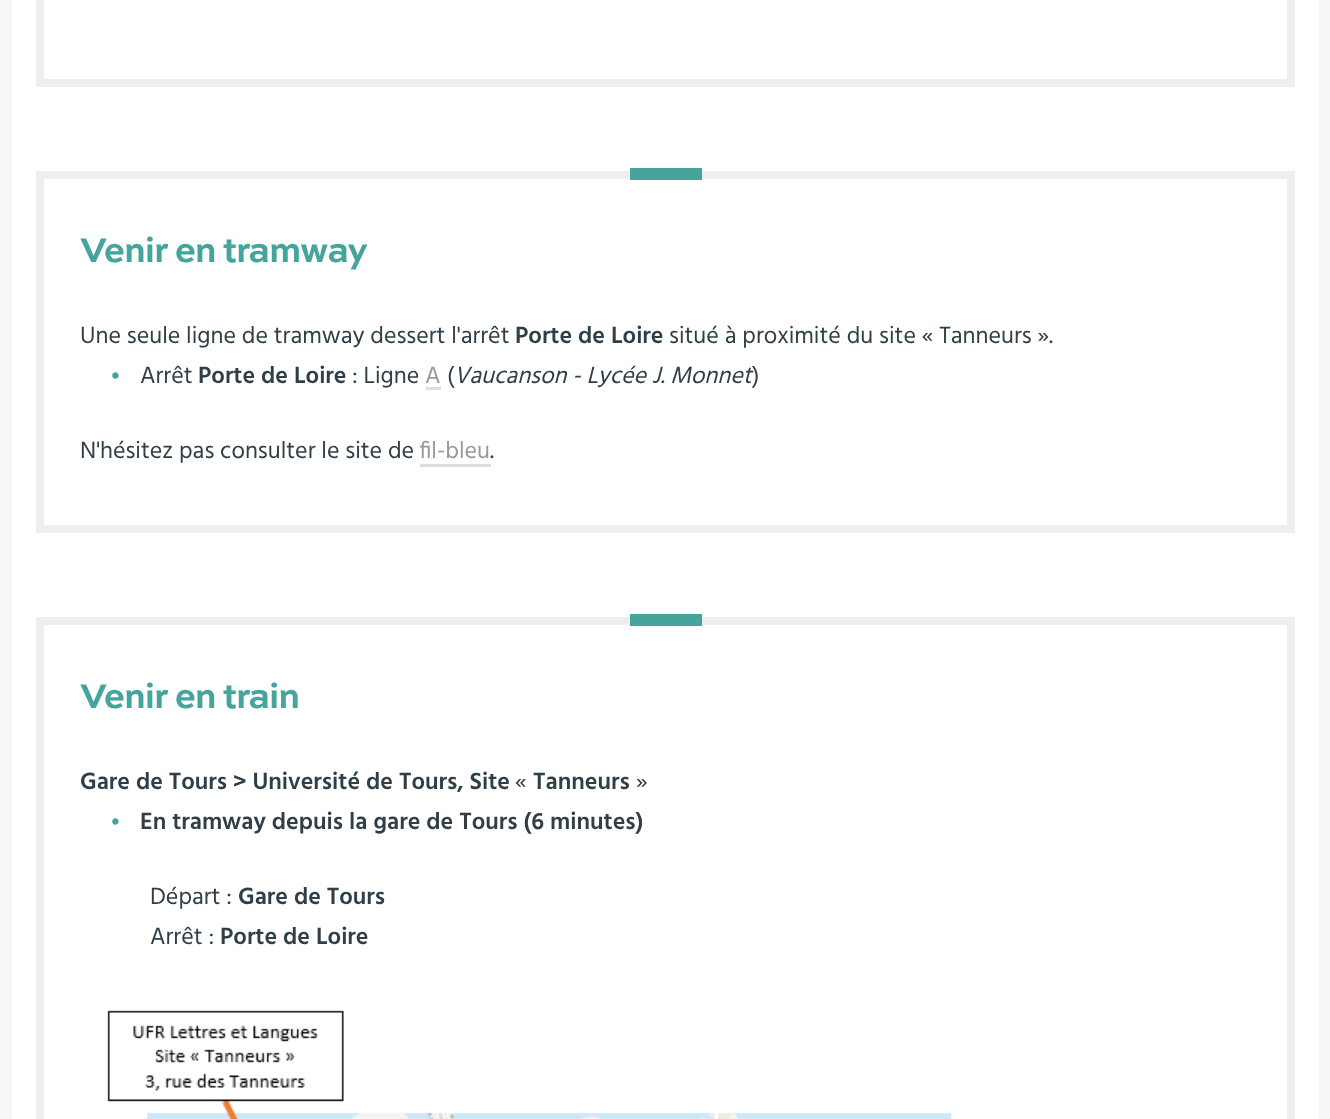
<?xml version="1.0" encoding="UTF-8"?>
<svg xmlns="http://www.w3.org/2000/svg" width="1330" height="1119">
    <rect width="100%" height="100%" fill="#F6F6F6"/>
    <rect x="12" y="0" width="1307" height="1119" fill="#FFFFFF"/>
    <rect x="40" y="-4" width="1251" height="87" fill="none" stroke="#EEEEEE" stroke-width="8"/>
    <rect x="40" y="175" width="1251" height="354" fill="none" stroke="#EEEEEE" stroke-width="8"/>
    <rect x="630" y="168" width="72" height="12" fill="#45A59D"/>
    <text x="80" y="262" font-family="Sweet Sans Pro" font-size="36" font-weight="700" letter-spacing="-1.1" fill="#45A59D">Venir en tramway</text>
    <text x="80" y="343" font-family="Hind" font-size="24" fill="#2F3E47">Une seule ligne de tramway dessert l'arrêt</text>
    <text x="515" y="343" font-family="Hind" font-size="24" font-weight="600" fill="#2F3E47">Porte de Loire</text>
    <text x="669" y="343" font-family="Hind" font-size="24" fill="#2F3E47">situé à proximité du site « Tanneurs ».</text>
    <text x="110" y="384" font-family="Hind" font-size="24" fill="#45A59D">•</text>
    <text x="140" y="383" font-family="Hind" font-size="24" fill="#2F3E47">Arrêt</text>
    <text x="198" y="383" font-family="Hind" font-size="24" font-weight="600" fill="#2F3E47">Porte de Loire</text>
    <text x="352" y="383" font-family="Hind" font-size="24" fill="#2F3E47">: Ligne</text>
    <text x="425" y="383" font-family="Hind" font-size="24" fill="#999999">A</text>
    <rect x="426" y="387" width="15" height="3" fill="#DDDDDD"/>
    <text x="447" y="383" font-family="Hind" font-size="24" fill="#2F3E47">(</text>
    <text x="454" y="383" font-family="Hind" font-size="24" font-style="italic" fill="#2F3E47">Vaucanson - Lycée J. Monnet</text>
    <text x="752" y="383" font-family="Hind" font-size="24" fill="#2F3E47">)</text>
    <text x="80" y="458" font-family="Hind" font-size="24" fill="#2F3E47">N'hésitez pas consulter le site de</text>
    <text x="419" y="458" font-family="Hind" font-size="24" fill="#999999">fil-bleu</text>
    <rect x="420" y="464" width="71" height="3" fill="#DDDDDD"/>
    <text x="490" y="458" font-family="Hind" font-size="24" fill="#2F3E47">.</text>
    <rect x="40" y="621" width="1251" height="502" fill="none" stroke="#EEEEEE" stroke-width="8"/>
    <rect x="630" y="614" width="72" height="12" fill="#45A59D"/>
    <text x="80" y="708" font-family="Sweet Sans Pro" font-size="36" font-weight="700" letter-spacing="-1.1" fill="#45A59D">Venir en train</text>
    <text x="80" y="789" font-family="Hind" font-size="24" font-weight="600" fill="#2F3E47">Gare de Tours &gt; Université de Tours, Site</text>
    <text x="515" y="789" font-family="Hind" font-size="24" fill="#2F3E47">«</text>
    <text x="533" y="789" font-family="Hind" font-size="24" font-weight="600" fill="#2F3E47">Tanneurs</text>
    <text x="636" y="789" font-family="Hind" font-size="24" fill="#2F3E47">»</text>
    <text x="110" y="830" font-family="Hind" font-size="24" fill="#45A59D">•</text>
    <text x="140" y="829" font-family="Hind" font-size="24" font-weight="600" fill="#2F3E47">En tramway depuis la gare de Tours (6 minutes)</text>
    <text x="150" y="904" font-family="Hind" font-size="24" fill="#2F3E47">Départ :</text>
    <text x="238" y="904" font-family="Hind" font-size="24" font-weight="600" fill="#2F3E47">Gare de Tours</text>
    <text x="150" y="944" font-family="Hind" font-size="24" fill="#2F3E47">Arrêt :</text>
    <text x="220" y="944" font-family="Hind" font-size="24" font-weight="600" fill="#2F3E47">Porte de Loire</text>
    <image x="107" y="1010" width="845" height="109" href="img_01.png"/>
</svg>
